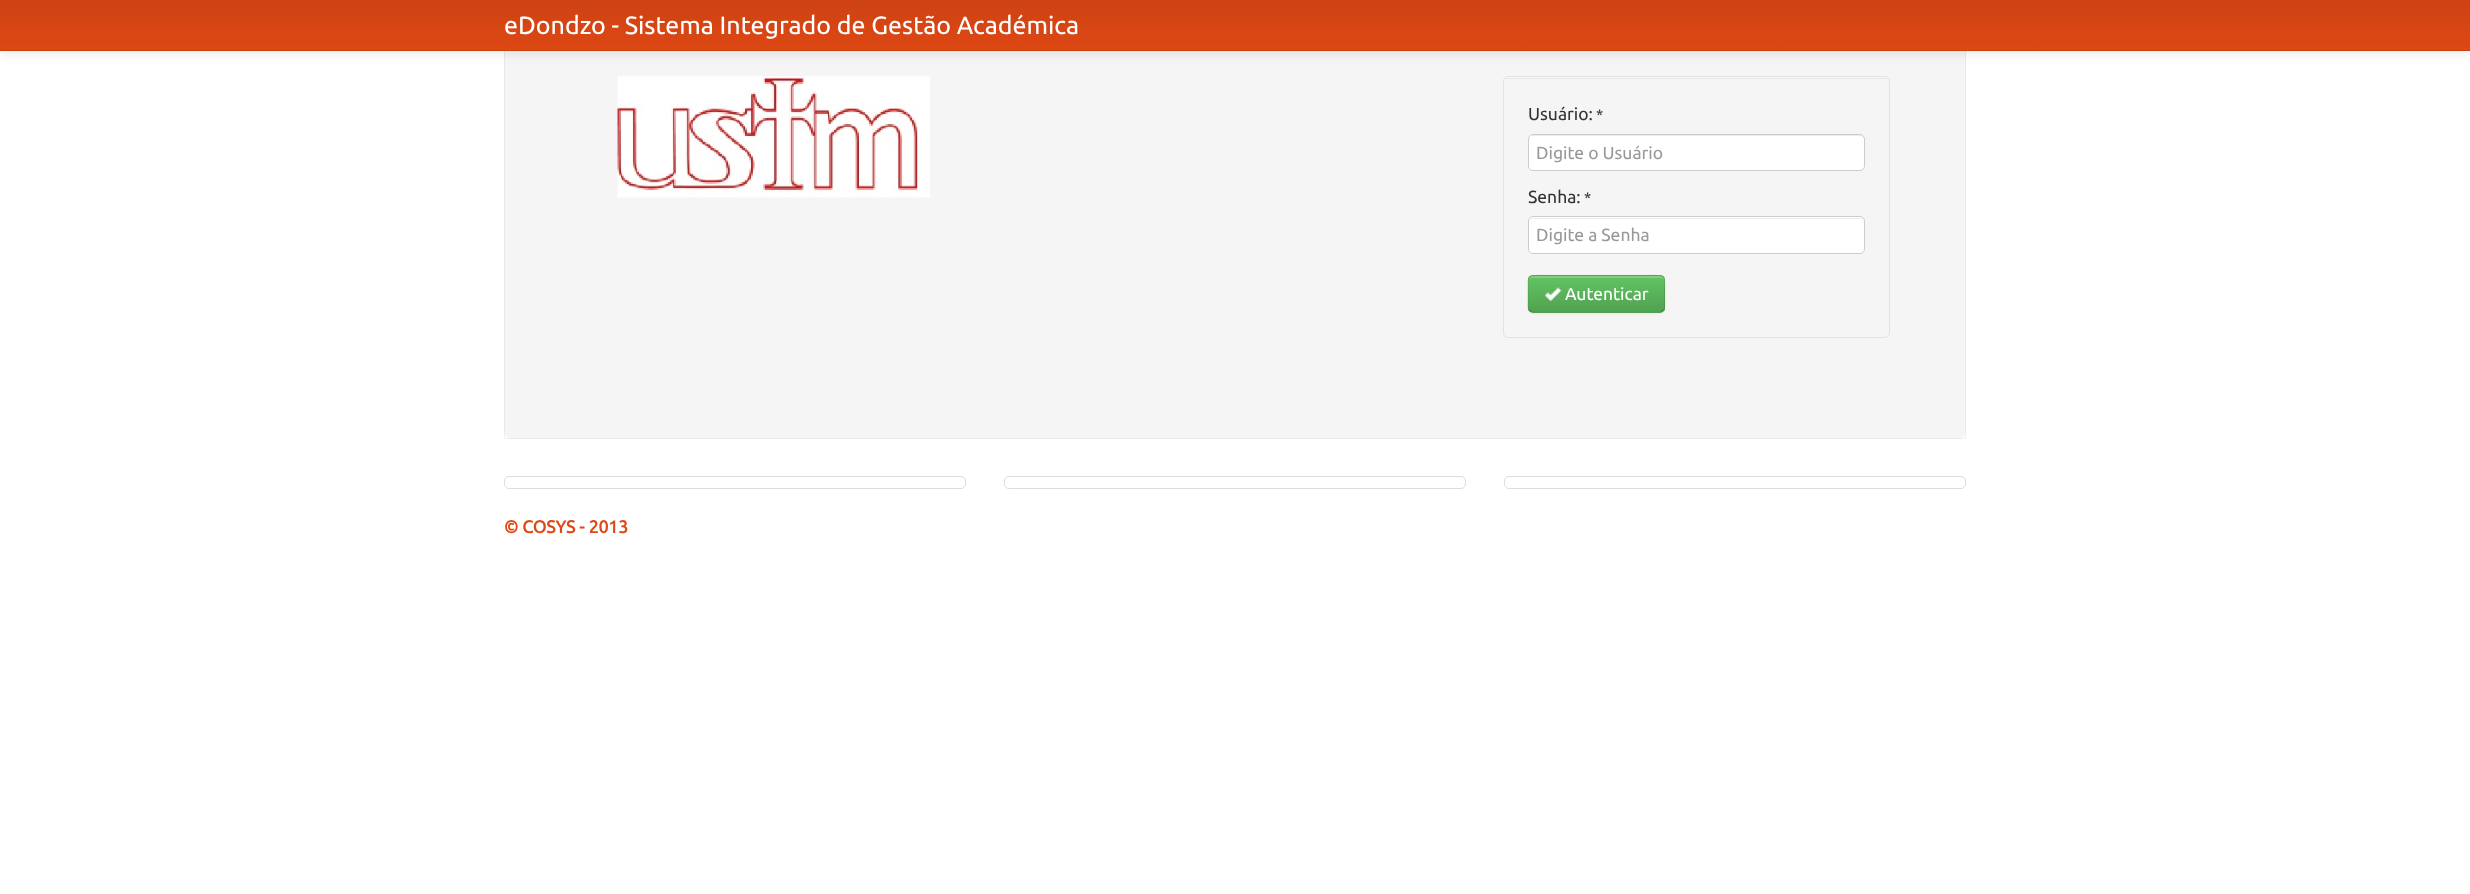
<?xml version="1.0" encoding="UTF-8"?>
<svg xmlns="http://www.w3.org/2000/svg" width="2470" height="894">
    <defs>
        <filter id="blur1" x="-50%" y="-200%" width="200%" height="500%"><feGaussianBlur stdDeviation="6"/></filter>
        <linearGradient id="g1" gradientUnits="userSpaceOnUse" x1="1235" y1="0" x2="1235" y2="50"><stop offset="0" stop-color="#CE4213"/><stop offset="1" stop-color="#DD4814"/></linearGradient>
        <filter id="blur2" x="-50%" y="-200%" width="200%" height="500%"><feGaussianBlur stdDeviation="1"/></filter>
        <clipPath id="clip1"><rect x="1528" y="275" width="137" height="38" rx="5"/></clipPath>
        <linearGradient id="g2" gradientUnits="userSpaceOnUse" x1="1596" y1="276" x2="1596" y2="311"><stop offset="0" stop-color="#62C462"/><stop offset="1" stop-color="#51A351"/></linearGradient>
    </defs>
    <rect width="100%" height="100%" fill="#FFFFFF"/>
    <rect x="504" y="0" width="1462" height="439" rx="8" fill="#F5F5F5"/>
    <rect x="504.5" y="0.5" width="1461" height="438" fill="none" stroke="#000000" stroke-opacity="0.05"/>
    <rect x="0" y="1" width="2470" height="52" fill="#000000" fill-opacity="0.1" filter="url(#blur1)"/>
    <rect x="0" y="0" width="2470" height="50" fill="url(#g1)"/>
    <rect x="0" y="50" width="2470" height="1" fill="#C64012"/>
    <text x="504" y="34" font-family="Ubuntu" font-size="25" fill="#FFFFFF">eDondzo - Sistema Integrado de Gestão Académica</text>
    <image x="617" y="76" width="313" height="122" href="img_01.png"/>
    <path d="M 1508 79 H 1885 C 1887 79 1889 80 1889 82 C 1889 80 1887 78 1885 78 H 1508 C 1506 78 1505 79 1504 80 C 1505 79 1506 79 1508 79 Z" fill="#E9E9E9"/>
    <rect x="1503.5" y="76.5" width="386" height="261" rx="4.5" fill="none" stroke="#E3E3E3"/>
    <text x="1528" y="120" font-family="Ubuntu" font-size="17.5" fill="#333333">Usuário:</text>
    <text x="1596" y="120" font-family="Ubuntu" font-size="15" fill="#333333">*</text>
    <rect x="1528" y="134" width="337" height="37" rx="5" fill="#FFFFFF"/>
    <path d="M 1532 136 H 1860 C 1862 136 1864 138 1864 140 C 1864 137 1863 135 1860 135 H 1533 C 1530 135 1529 137 1529 140 C 1529 138 1530 136 1532 136 Z" fill="#ECECEC"/>
    <rect x="1528.5" y="134.5" width="336" height="36" rx="4.5" fill="none" stroke="#CCCCCC"/>
    <text x="1536" y="159" font-family="Ubuntu" font-size="17.5" fill="#999999">Digite o Usuário</text>
    <text x="1528" y="203" font-family="Ubuntu" font-size="17.5" fill="#333333">Senha:</text>
    <text x="1584" y="203" font-family="Ubuntu" font-size="15" fill="#333333">*</text>
    <rect x="1528" y="216" width="337" height="38" rx="5" fill="#FFFFFF"/>
    <path d="M 1532 219 H 1860 C 1862 219 1864 220 1864 222 C 1864 220 1862 218 1860 218 H 1533 C 1532 218 1530 219 1530 220 Z" fill="#ECECEC"/>
    <rect x="1528.5" y="216.5" width="336" height="37" rx="4.5" fill="none" stroke="#CCCCCC"/>
    <text x="1536" y="241" font-family="Ubuntu" font-size="17.5" fill="#999999">Digite a Senha</text>
    <rect x="1528" y="276" width="137" height="38" rx="5" fill="#000000" fill-opacity="0.05" filter="url(#blur2)"/>
    <rect x="1528" y="275" width="137" height="38" rx="5" fill="#5BB75B"/>
    <g clip-path="url(#clip1)">
        <rect x="1528" y="276" width="137" height="35" fill="url(#g2)"/>
    </g>
    <path d="M 1532 278 H 1660 C 1662 278 1664 279 1664 281 V 280 C 1664 278 1662 276 1660 276 H 1533 C 1531 276 1529 278 1529 280 V 281 C 1529 279 1530 278 1532 278 Z" fill="#81CF81"/>
    <path d="M 1663 310.5 L 1660.5 312 H 1554 H 1532.5 L 1529.5 310.5" fill="none" stroke="#000000" stroke-opacity="0.25" stroke-width="1.2"/>
    <path d="M 1529.5 310.5 C 1526.5 308 1528 301.5 1528 298.5 C 1528 270.5 1524 275.5 1554 275.5 H 1639 C 1668.5 275.5 1664.5 270.5 1664.5 298.5 C 1664.5 301.5 1666 308 1663 310.5" fill="none" stroke="#000000" stroke-opacity="0.1" stroke-width="1.2"/>
    <image x="1544" y="287" width="18" height="16" href="img_02.png"/>
    <text x="1565" y="300" font-family="Ubuntu" font-size="17.5" fill="#FFFFFF">Autenticar</text>
    <rect x="504.5" y="476.5" width="461" height="12" rx="4.5" fill="none" stroke="#DDDDDD"/>
    <rect x="1004.5" y="476.5" width="461" height="12" rx="4.5" fill="none" stroke="#DDDDDD"/>
    <rect x="1504.5" y="476.5" width="461" height="12" rx="4.5" fill="none" stroke="#DDDDDD"/>
    <text x="504" y="533" font-family="Ubuntu" font-size="17.5" font-weight="700" fill="#DD4814">© COSYS - 2013</text>
</svg>
